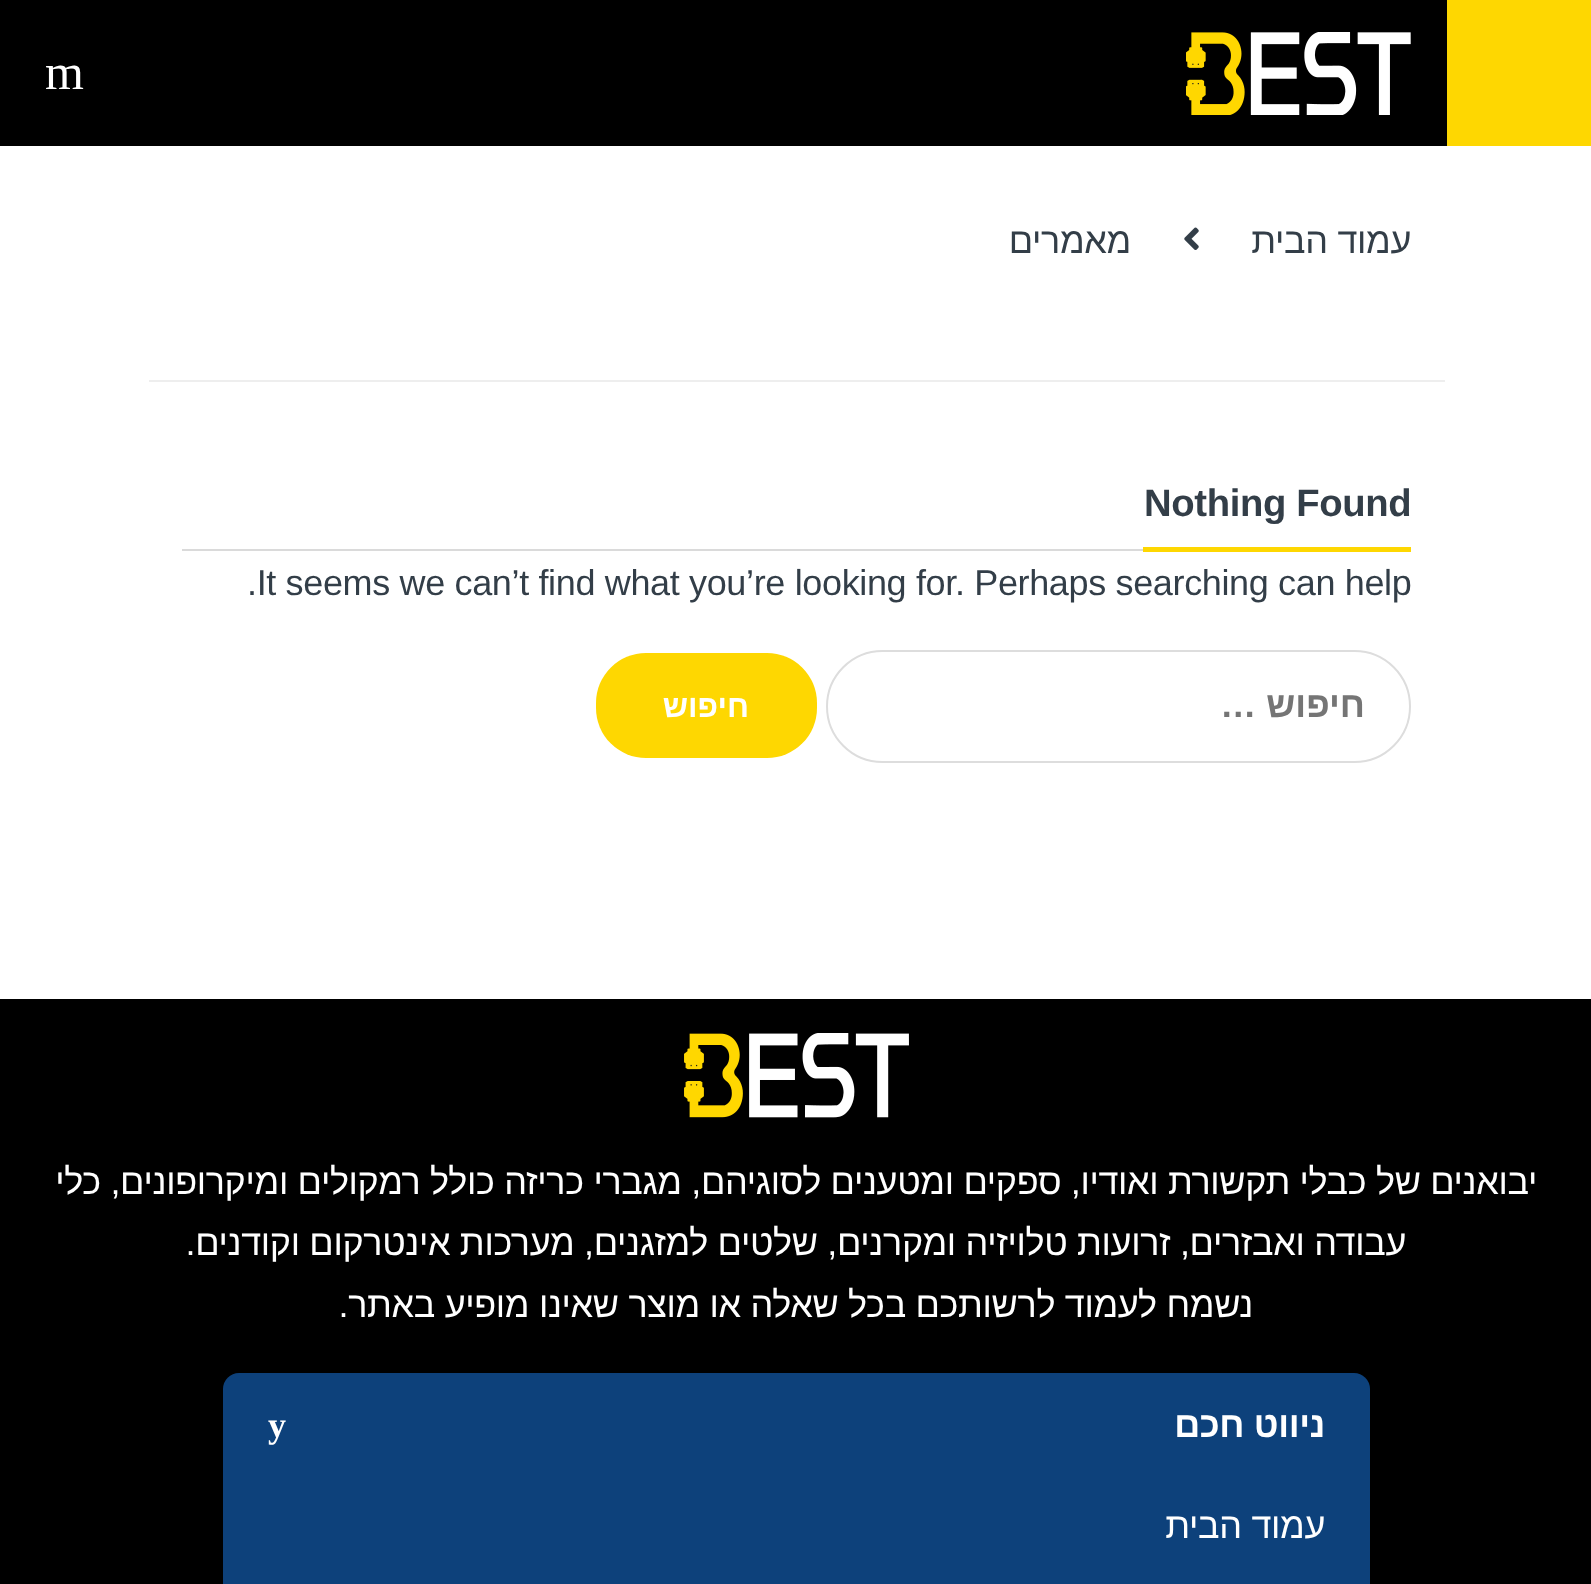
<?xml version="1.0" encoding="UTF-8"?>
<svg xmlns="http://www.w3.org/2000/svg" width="1591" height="1584">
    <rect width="100%" height="100%" fill="#FFFFFF"/>
    <rect x="0" y="0" width="1447" height="146" fill="#000000"/>
    <rect x="1447" y="0" width="144" height="146" fill="#FED701"/>
    <image x="1186" y="32" width="225" height="83" href="img_01.png"/>
    <text x="45" y="89" font-family="Liberation Serif" font-size="50" letter-spacing="-0.35" fill="#FFFFFF">m</text>
    <text x="1411" y="253" font-family="Liberation Sans" font-size="36" letter-spacing="-0.35" direction="rtl" fill="#333E48">עמוד הבית</text>
    <image x="1184" y="227" width="15" height="23" href="img_02.png"/>
    <text x="1131" y="253" font-family="Liberation Sans" font-size="36" letter-spacing="-0.35" direction="rtl" fill="#333E48">מאמרים</text>
    <rect x="149" y="380" width="1296" height="2" fill="#EEEEEE"/>
    <rect x="182" y="549" width="961" height="2" fill="#DADADA"/>
    <text x="1144" y="516" font-family="Liberation Sans" font-size="38.25" font-weight="700" letter-spacing="-0.35" fill="#333E48">Nothing Found</text>
    <rect x="1143" y="547" width="268" height="5" fill="#FED701"/>
    <text x="247" y="595" font-family="Liberation Sans" font-size="36" letter-spacing="-0.35" fill="#333E48">.It seems we can’t find what you’re looking for. Perhaps searching can help</text>
    <rect x="827" y="651" width="583" height="111" rx="55.5" fill="none" stroke="#DDDDDD" stroke-width="2"/>
    <text x="1365" y="717" font-family="Liberation Sans" font-size="36" font-weight="700" direction="rtl" fill="#757575">חיפוש …</text>
    <rect x="596" y="653" width="221" height="105" rx="50" fill="#FED701"/>
    <text x="749" y="717" font-family="Liberation Sans" font-size="31.5" font-weight="700" direction="rtl" fill="#FFFFFF">חיפוש</text>
    <rect x="0" y="999" width="1591" height="585" fill="#000000"/>
    <image x="684" y="1033" width="225" height="85" href="img_03.png"/>
    <text x="1537" y="1194" font-family="Liberation Sans" font-size="36" letter-spacing="-0.35" direction="rtl" fill="#FFFFFF">יבואנים של כבלי תקשורת ואודיו, ספקים ומטענים לסוגיהם, מגברי כריזה כולל רמקולים ומיקרופונים, כלי</text>
    <text x="1406" y="1255" font-family="Liberation Sans" font-size="36" letter-spacing="-0.35" direction="rtl" fill="#FFFFFF">עבודה ואבזרים, זרועות טלויזיה ומקרנים, שלטים למזגנים, מערכות אינטרקום וקודנים.</text>
    <text x="1253" y="1317" font-family="Liberation Sans" font-size="36" letter-spacing="-0.35" direction="rtl" fill="#FFFFFF">נשמח לעמוד לרשותכם בכל שאלה או מוצר שאינו מופיע באתר.</text>
    <rect x="223" y="1373" width="1147" height="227" rx="16" fill="#0D417B"/>
    <text x="1325" y="1437" font-family="Liberation Sans" font-size="36" font-weight="700" letter-spacing="-0.35" direction="rtl" fill="#FFFFFF">ניווט חכם</text>
    <text x="268" y="1437" font-family="Liberation Serif" font-size="36" font-weight="700" letter-spacing="-0.35" fill="#FFFFFF">y</text>
    <text x="1325" y="1538" font-family="Liberation Sans" font-size="36" letter-spacing="-0.35" direction="rtl" fill="#FFFFFF">עמוד הבית</text>
</svg>
